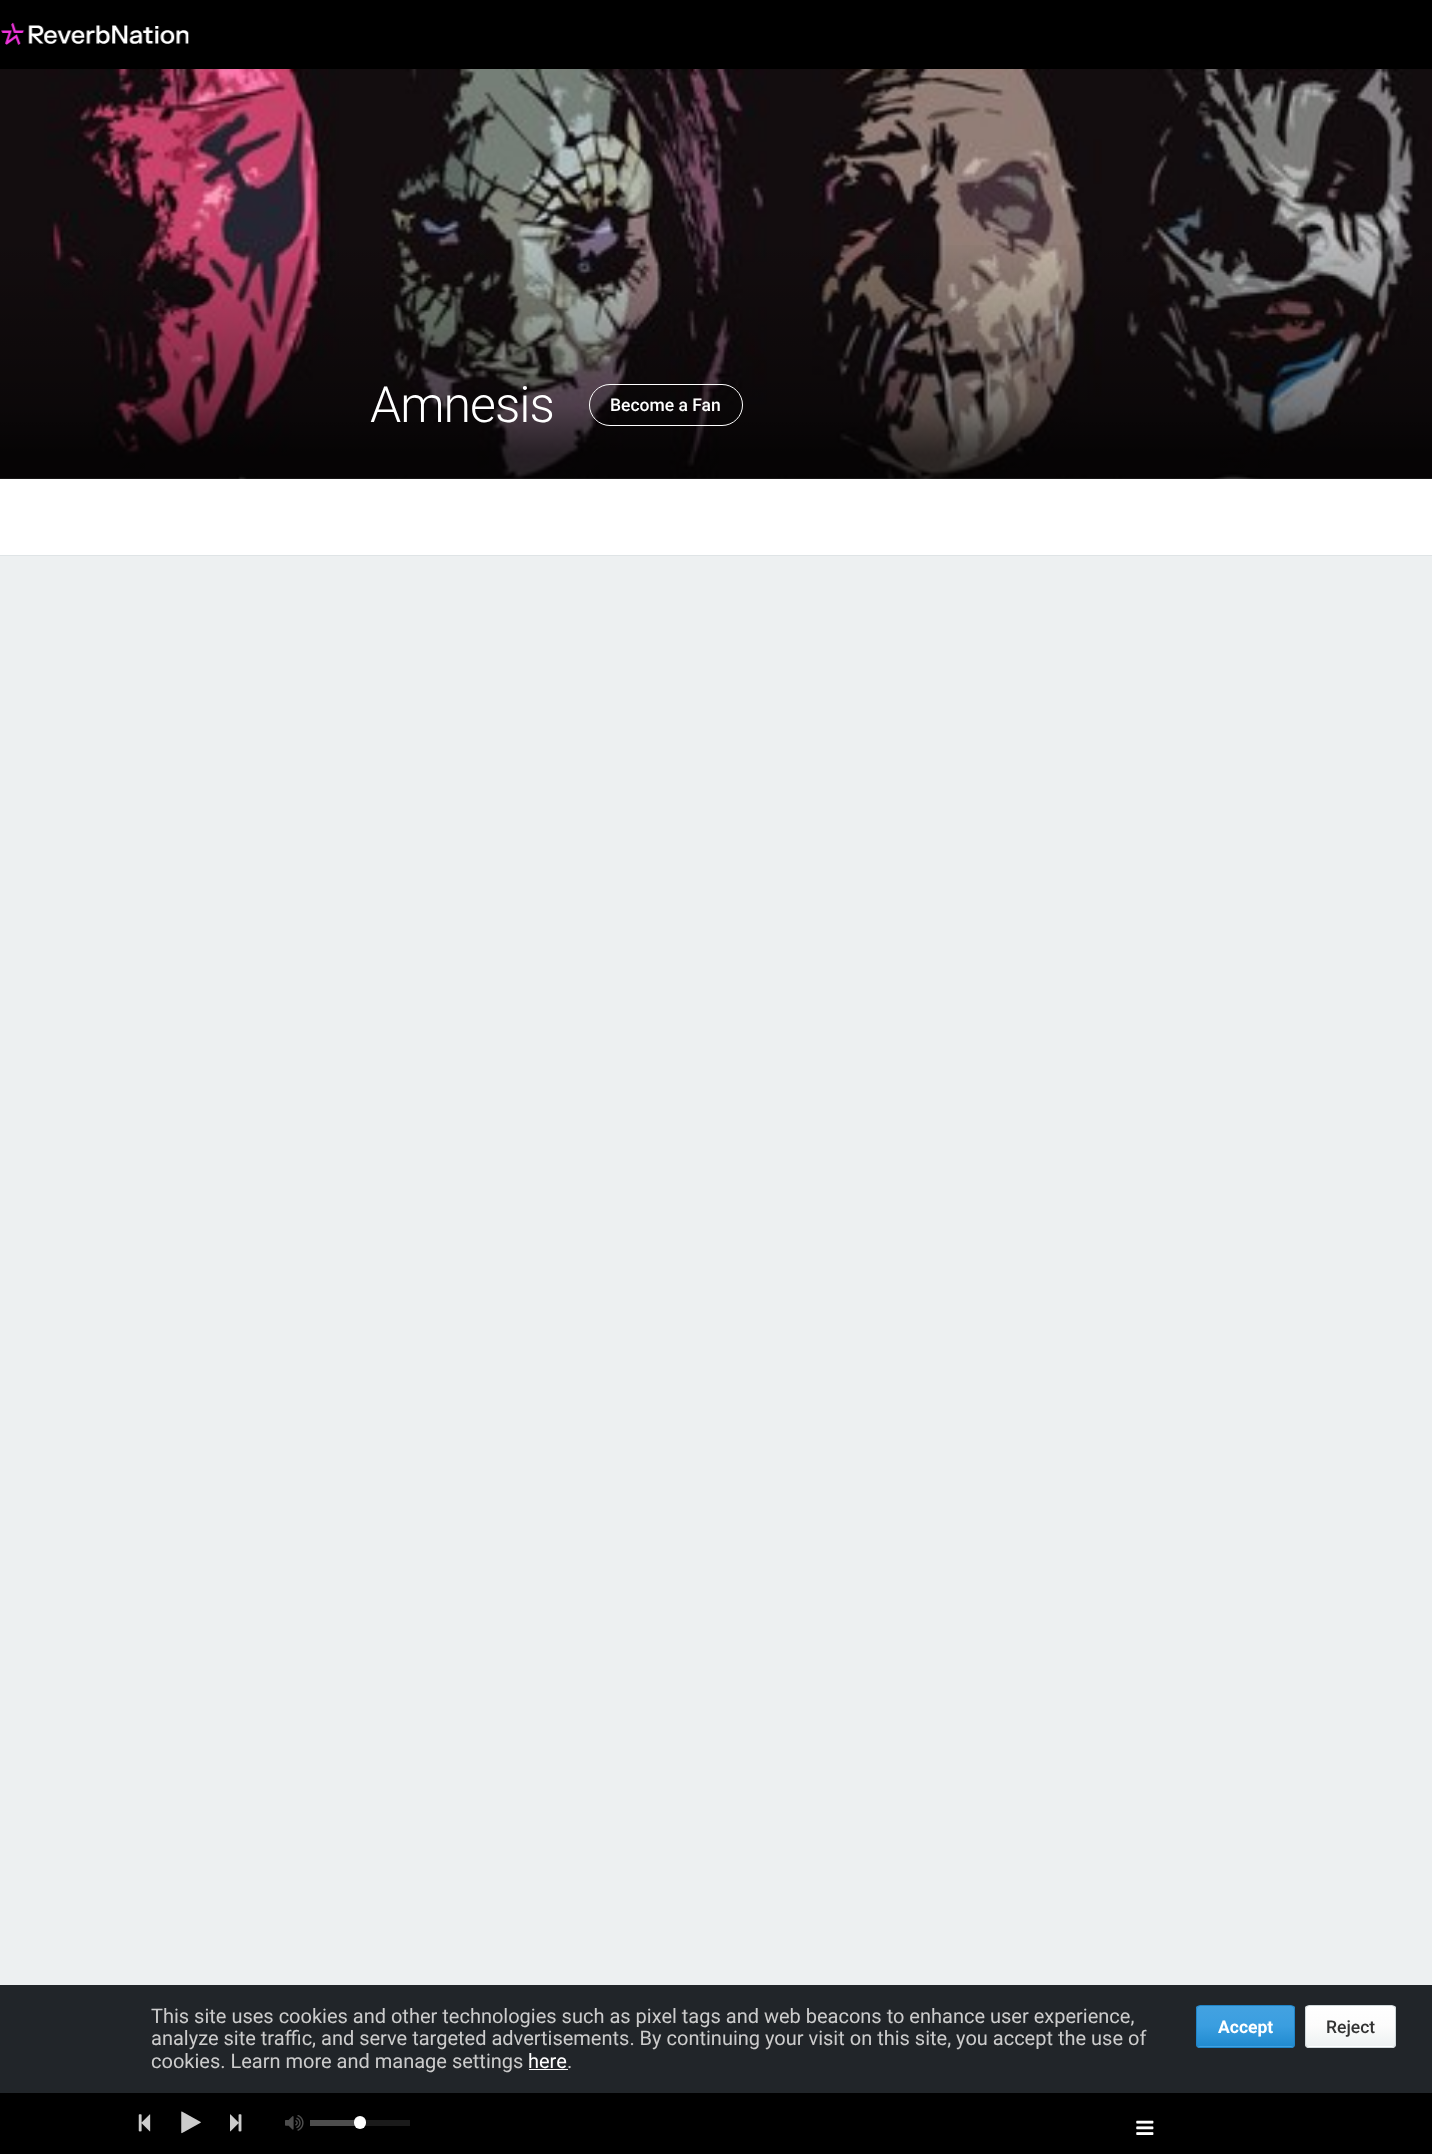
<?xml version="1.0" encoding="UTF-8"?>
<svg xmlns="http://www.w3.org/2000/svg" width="1432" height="2154">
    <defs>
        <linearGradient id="g1" gradientUnits="userSpaceOnUse" x1="716" y1="236" x2="716" y2="479"><stop offset="0" stop-color="#000000" stop-opacity="0"/><stop offset="0.7" stop-color="#000000" stop-opacity="0.4"/><stop offset="0.9" stop-color="#000000" stop-opacity="0.7"/></linearGradient>
        <clipPath id="clip1"><rect x="1196" y="2005" width="99" height="43" rx="4"/></clipPath>
        <linearGradient id="g2" gradientUnits="userSpaceOnUse" x1="1246" y1="2006" x2="1246" y2="2046"><stop offset="0" stop-color="#43A2E1"/><stop offset="0.5" stop-color="#3A9EE0"/><stop offset="1" stop-color="#218BD0"/></linearGradient>
        <linearGradient id="g3" gradientUnits="userSpaceOnUse" x1="1246" y1="2046" x2="1246" y2="2086"><stop offset="0" stop-color="#43A2E1"/><stop offset="0.5" stop-color="#3A9EE0"/><stop offset="1" stop-color="#218BD0"/></linearGradient>
        <clipPath id="clip2"><rect x="1305" y="2005" width="91" height="43" rx="4"/></clipPath>
        <linearGradient id="g4" gradientUnits="userSpaceOnUse" x1="1351" y1="2006" x2="1351" y2="2046"><stop offset="0" stop-color="#FFFFFF"/><stop offset="0.5" stop-color="#FCFCFC"/><stop offset="1" stop-color="#EDF1F2"/></linearGradient>
        <linearGradient id="g5" gradientUnits="userSpaceOnUse" x1="1351" y1="2046" x2="1351" y2="2086"><stop offset="0" stop-color="#FFFFFF"/><stop offset="0.5" stop-color="#FCFCFC"/><stop offset="1" stop-color="#EDF1F2"/></linearGradient>
    </defs>
    <rect width="100%" height="100%" fill="#EDF0F1"/>
    <rect x="0" y="0" width="1432" height="69" fill="#000000"/>
    <image x="1" y="22" width="188" height="23" href="img_01.png"/>
    <rect x="0" y="478" width="1432" height="77" fill="#FFFFFF"/>
    <image x="0" y="69" width="1432" height="410" href="img_02.png"/>
    <rect x="0" y="245" width="1432" height="234" fill="url(#g1)"/>
    <text x="370" y="422" font-family="Roboto" font-size="50" font-weight="300" letter-spacing="-1" fill="#FFFFFF">Amnesis</text>
    <rect x="589.5" y="384.5" width="153" height="41" rx="20.5" fill="#000000" fill-opacity="0.1" stroke="#FFFFFF"/>
    <text x="610" y="411" font-family="Roboto" font-size="17.5" font-weight="500" fill="#FFFFFF">Become a Fan</text>
    <path d="M 0 555 V 556 H 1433 V 481 H 1432 V 555 Z" fill="#DFE4E6"/>
    <rect x="0" y="1985" width="1432" height="108" fill="#212529"/>
    <text font-family="Roboto" font-size="20" fill="#CCCCCC">
        <tspan x="151" y="2023">This site uses cookies and other technologies such as pixel tags and web beacons to enhance user experience,</tspan>
        <tspan x="151" y="2045">analyze site traffic, and serve targeted advertisements. By continuing your visit on this site, you accept the use of</tspan>
        <tspan x="151" y="2068">cookies. Learn more and manage settings</tspan>
    </text>
    <text x="528" y="2068" font-family="Roboto" font-size="20" fill="#FFFFFF">here</text>
    <rect x="529" y="2069" width="39" height="1" fill="#FFFFFF"/>
    <text x="567" y="2068" font-family="Roboto" font-size="20" fill="#CCCCCC">.</text>
    <g clip-path="url(#clip1)">
        <rect x="1196" y="2006" width="99" height="40" fill="url(#g2)"/>
        <rect x="1196" y="2046" width="99" height="2" fill="url(#g3)"/>
    </g>
    <rect x="1196.5" y="2005.5" width="98" height="42" rx="3.5" fill="none" stroke="#1F85C8"/>
    <text x="1218" y="2033" font-family="Roboto" font-size="17.5" font-weight="700" fill="#FFFFFF">Accept</text>
    <g clip-path="url(#clip2)">
        <rect x="1305" y="2006" width="91" height="40" fill="url(#g4)"/>
        <rect x="1305" y="2046" width="91" height="2" fill="url(#g5)"/>
    </g>
    <rect x="1305.5" y="2005.5" width="90" height="42" rx="3.5" fill="none" stroke="#D0D8DB"/>
    <text x="1326" y="2033" font-family="Roboto" font-size="17.5" font-weight="500" fill="#333333">Reject</text>
    <rect x="0" y="2093" width="1432" height="61" fill="#000000"/>
    <image x="138" y="2114" width="13" height="18" href="img_03.png"/>
    <image x="181" y="2111" width="20" height="23" href="img_04.png"/>
    <image x="230" y="2114" width="12" height="18" href="img_05.png"/>
    <rect x="365" y="2120" width="45" height="6" fill="#1A1A1A"/>
    <image x="285" y="2115" width="19" height="16" href="img_06.png"/>
    <rect x="310" y="2120" width="50" height="6" fill="#4D4D4D"/>
    <rect x="354" y="2116" width="12" height="13" rx="6" fill="#FFFFFF"/>
    <image x="1136" y="2120" width="18" height="15" href="img_07.png"/>
</svg>
